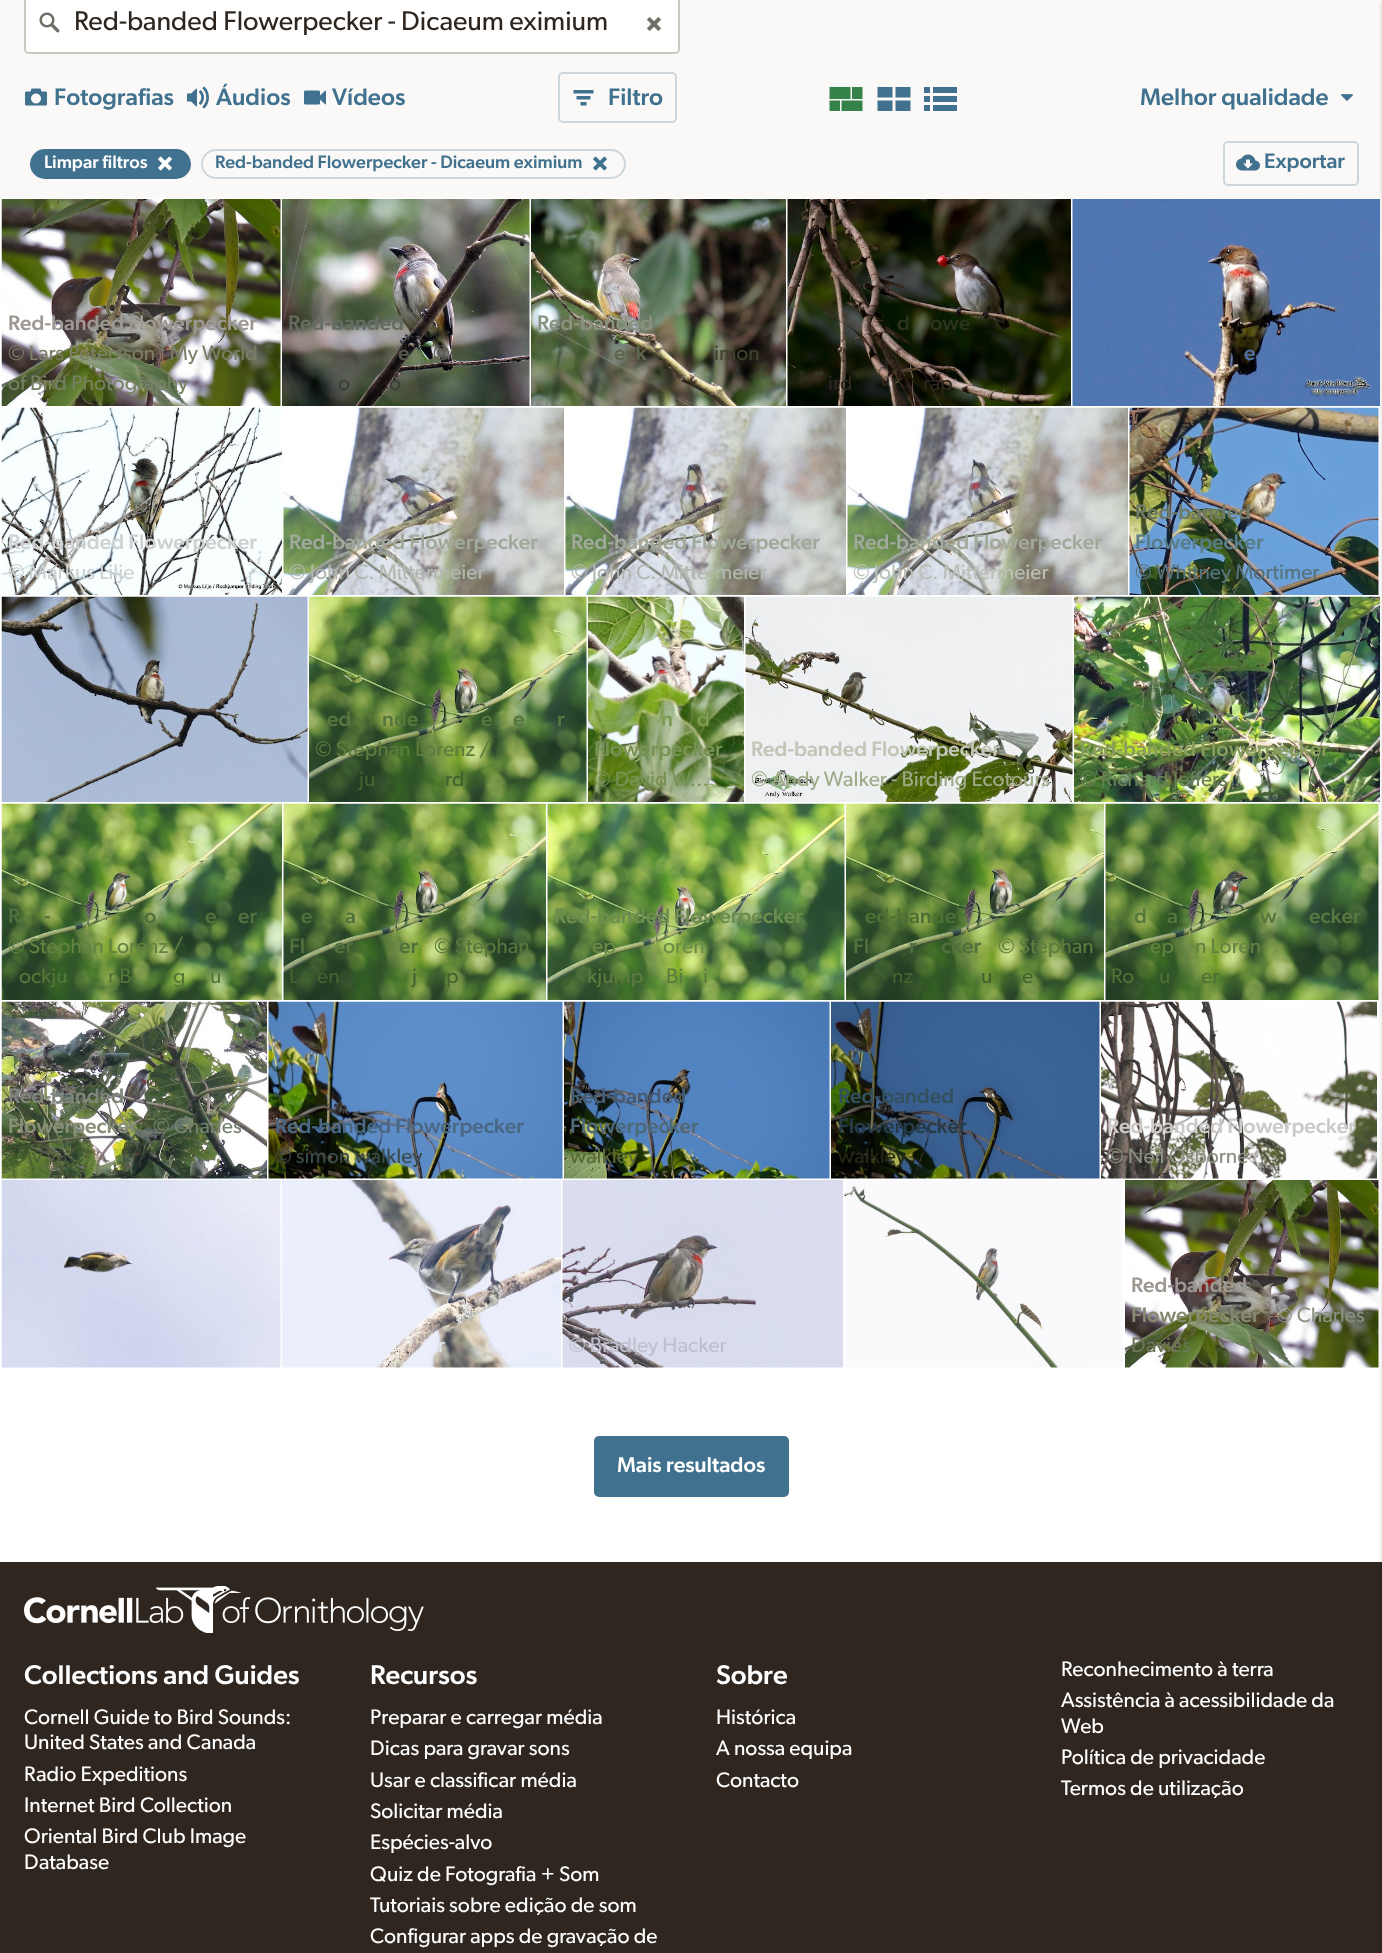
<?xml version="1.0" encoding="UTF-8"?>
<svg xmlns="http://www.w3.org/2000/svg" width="1382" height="1953">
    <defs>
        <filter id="blur1" x="-50%" y="-200%" width="200%" height="500%"><feGaussianBlur stdDeviation="3"/></filter>
    </defs>
    <rect width="100%" height="100%" fill="#FFFFFF"/>
    <rect x="0" y="0" width="1382" height="198" fill="#FAF9F7"/>
    <rect x="25" y="-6" width="654" height="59" rx="4" fill="#FFFFFF" stroke="#C8C7C0" stroke-width="2"/>
    <image x="39" y="12" width="21" height="21" href="img_01.png"/>
    <text x="74" y="30" font-family="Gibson" font-size="27.1" fill="#2E261F">Red-banded Flowerpecker - Dicaeum eximium</text>
    <image x="647" y="17" width="14" height="14" href="img_02.png"/>
    <image x="25" y="88" width="22" height="18" href="img_03.png"/>
    <text x="54" y="105" font-family="Gibson" font-size="24" font-weight="500" fill="#40718F">Fotografias</text>
    <image x="187" y="86" width="22" height="23" href="img_04.png"/>
    <text x="216" y="105" font-family="Gibson" font-size="24" font-weight="500" fill="#40718F">Áudios</text>
    <image x="304" y="90" width="22" height="15" href="img_05.png"/>
    <text x="332" y="105" font-family="Gibson" font-size="24" font-weight="500" fill="#40718F">Vídeos</text>
    <rect x="559" y="73" width="117" height="49" rx="4" fill="none" stroke="#CCD7DD" stroke-width="2"/>
    <image x="573" y="90" width="21" height="16" href="img_06.png"/>
    <text x="608" y="105" font-family="Gibson" font-size="24" font-weight="500" fill="#40718F">Filtro</text>
    <image x="829" y="87" width="34" height="24" href="img_07.png"/>
    <image x="877" y="87" width="34" height="24" href="img_08.png"/>
    <image x="924" y="87" width="33" height="24" href="img_09.png"/>
    <text x="1140" y="105" font-family="Gibson" font-size="24" font-weight="500" fill="#40718F">Melhor qualidade</text>
    <image x="1341" y="94" width="12" height="7" href="img_10.png"/>
    <rect x="30" y="149" width="161" height="30" rx="15" fill="#40718F"/>
    <text x="44" y="168" font-family="Gibson" font-size="18" font-weight="500" fill="#FFFFFF">Limpar filtros</text>
    <image x="158" y="156" width="14" height="15" href="img_11.png"/>
    <rect x="202" y="150" width="423" height="28" rx="14" fill="none" stroke="#CCD7DD" stroke-width="2"/>
    <text x="215" y="168" font-family="Gibson" font-size="18" font-weight="500" fill="#40718F">Red-banded Flowerpecker - Dicaeum eximium</text>
    <image x="593" y="156" width="14" height="15" href="img_12.png"/>
    <rect x="1224" y="142" width="134" height="43" rx="4" fill="none" stroke="#CCD7DD" stroke-width="2"/>
    <image x="1236" y="154" width="24" height="17" href="img_13.png"/>
    <text x="1264" y="168" font-family="Gibson" font-size="21.1" font-weight="500" fill="#40718F">Exportar</text>
    <image x="1" y="199" width="280" height="207" href="img_14.png"/>
    <text x="8" y="330" font-family="Gibson" font-size="21.1" font-weight="500" fill="#9D9892">Red-banded Flowerpecker</text>
    <text x="8" y="360" font-family="Gibson" font-size="21.1" fill="#7B7D65">© Lars Petersson | My World</text>
    <text x="8" y="390" font-family="Gibson" font-size="21.1" fill="#758161">of Bird Photography</text>
    <image x="282" y="199" width="248" height="207" href="img_15.png"/>
    <text x="288" y="330" font-family="Gibson" font-size="21.1" font-weight="500" fill="#676C60">Red-banded</text>
    <text x="398" y="360" font-family="Gibson" font-size="21.1" font-weight="500" fill="#56554A">e</text>
    <text x="433" y="360" font-family="Gibson" font-size="21.1" fill="#555951">©</text>
    <text x="338" y="390" font-family="Gibson" font-size="21.1" fill="#3A3F36">o</text>
    <text x="389" y="390" font-family="Gibson" font-size="21.1" fill="#3A3F36">o</text>
    <image x="531" y="199" width="255" height="207" href="img_16.png"/>
    <text x="537" y="330" font-family="Gibson" font-size="21.1" font-weight="500" fill="#8A9181">Red-banded</text>
    <text x="614" y="360" font-family="Gibson" font-size="21.1" font-weight="500" fill="#5E664E">eck</text>
    <text x="714" y="360" font-family="Gibson" font-size="21.1" fill="#3F422F">imon</text>
    <image x="787" y="199" width="284" height="207" href="img_17.png"/>
    <text x="897" y="330" font-family="Gibson" font-size="21.1" font-weight="500" fill="#2C321C">d</text>
    <text x="930" y="330" font-family="Gibson" font-size="21.1" font-weight="500" fill="#2C321C">owe</text>
    <text x="828" y="390" font-family="Gibson" font-size="21.1" fill="#2E261F">ird</text>
    <text x="923" y="390" font-family="Gibson" font-size="21.1" fill="#2E261F">rap</text>
    <image x="1072" y="199" width="308" height="207" href="img_18.png"/>
    <text x="1244" y="360" font-family="Gibson" font-size="21.1" font-weight="500" fill="#506FA0">e</text>
    <image x="1" y="407" width="281" height="188" href="img_19.png"/>
    <text x="8" y="549" font-family="Gibson" font-size="21.1" font-weight="500" fill="#CED2D2">Red-banded Flowerpecker</text>
    <text x="8" y="579" font-family="Gibson" font-size="21.1" fill="#CED2D2">© Markus Lilje</text>
    <image x="283" y="407" width="281" height="188" href="img_20.png"/>
    <text x="289" y="549" font-family="Gibson" font-size="21.1" font-weight="500" fill="#A1A99B">Red-banded Flowerpecker</text>
    <text x="289" y="579" font-family="Gibson" font-size="21.1" fill="#B2B8B0">© John C. Mittermeier</text>
    <image x="565" y="407" width="281" height="188" href="img_21.png"/>
    <text x="571" y="549" font-family="Gibson" font-size="21.1" font-weight="500" fill="#A1A99B">Red-banded Flowerpecker</text>
    <text x="571" y="579" font-family="Gibson" font-size="21.1" fill="#B2B8B0">© John C. Mittermeier</text>
    <image x="847" y="407" width="281" height="188" href="img_22.png"/>
    <text x="853" y="549" font-family="Gibson" font-size="21.1" font-weight="500" fill="#A1A99B">Red-banded Flowerpecker</text>
    <text x="853" y="579" font-family="Gibson" font-size="21.1" fill="#BBBFB8">© John C. Mittermeier</text>
    <image x="1129" y="407" width="250" height="188" href="img_23.png"/>
    <text x="1135" y="519" font-family="Gibson" font-size="21.1" font-weight="500" fill="#6D7A65">Red-banded</text>
    <text x="1135" y="549" font-family="Gibson" font-size="21.1" font-weight="500" fill="#587D88">Flowerpecker</text>
    <text x="1135" y="579" font-family="Gibson" font-size="21.1" fill="#56727B">© Whitney Mortimer</text>
    <image x="1" y="596" width="307" height="206" href="img_24.png"/>
    <image x="309" y="596" width="278" height="206" href="img_25.png"/>
    <text x="327" y="726" font-family="Gibson" font-size="21.1" font-weight="500" fill="#57773E">ed</text>
    <text x="382" y="726" font-family="Gibson" font-size="21.1" font-weight="500" fill="#57773E">nde</text>
    <text x="481" y="726" font-family="Gibson" font-size="21.1" font-weight="500" fill="#57773E">e</text>
    <text x="513" y="726" font-family="Gibson" font-size="21.1" font-weight="500" fill="#57773E">e</text>
    <text x="557" y="726" font-family="Gibson" font-size="21.1" font-weight="500" fill="#57773E">r</text>
    <text x="315" y="756" font-family="Gibson" font-size="21.1" fill="#5D7B3E">© Stephan Lorenz /</text>
    <text x="359" y="786" font-family="Gibson" font-size="21.1" fill="#41632F">ju</text>
    <text x="445" y="786" font-family="Gibson" font-size="21.1" fill="#41632F">rd</text>
    <image x="588" y="596" width="156" height="206" href="img_26.png"/>
    <text x="661" y="726" font-family="Gibson" font-size="21.1" font-weight="500" fill="#7E9B52">n</text>
    <text x="697" y="726" font-family="Gibson" font-size="21.1" font-weight="500" fill="#7E9B52">d</text>
    <text x="594" y="756" font-family="Gibson" font-size="21.1" font-weight="500" fill="#779254">Flowerpecker</text>
    <text x="594" y="786" font-family="Gibson" font-size="21.1" fill="#779254">© David W…</text>
    <image x="745" y="596" width="328" height="206" href="img_27.png"/>
    <text x="751" y="756" font-family="Gibson" font-size="21.1" font-weight="500" fill="#C2C6B7">Red-banded Flowerpecker</text>
    <text x="751" y="786" font-family="Gibson" font-size="21.1" fill="#9FAA88">© Andy Walker - Birding Ecotours</text>
    <image x="1074" y="596" width="306" height="206" href="img_28.png"/>
    <text x="1080" y="756" font-family="Gibson" font-size="21.1" font-weight="500" fill="#889C5B">Red-banded Flowerpecker</text>
    <text x="1080" y="786" font-family="Gibson" font-size="21.1" fill="#688255">© Richard Jeffers</text>
    <image x="1" y="803" width="281" height="197" href="img_29.png"/>
    <text x="8" y="923" font-family="Gibson" font-size="21.1" font-weight="500" fill="#50703D">R</text>
    <text x="44" y="923" font-family="Gibson" font-size="21.1" font-weight="500" fill="#50703D">-</text>
    <text x="144" y="923" font-family="Gibson" font-size="21.1" font-weight="500" fill="#50703D">o</text>
    <text x="205" y="923" font-family="Gibson" font-size="21.1" font-weight="500" fill="#50703D">e</text>
    <text x="238" y="923" font-family="Gibson" font-size="21.1" font-weight="500" fill="#50703D">er</text>
    <text x="8" y="953" font-family="Gibson" font-size="21.1" fill="#628240">© Stephan Lorenz /</text>
    <text x="19" y="983" font-family="Gibson" font-size="21.1" fill="#537638">ockju</text>
    <text x="108" y="983" font-family="Gibson" font-size="21.1" fill="#537638">r B</text>
    <text x="173" y="983" font-family="Gibson" font-size="21.1" fill="#537638">g</text>
    <text x="210" y="983" font-family="Gibson" font-size="21.1" fill="#537638">u</text>
    <image x="283" y="803" width="263" height="197" href="img_30.png"/>
    <text x="301" y="923" font-family="Gibson" font-size="21.1" font-weight="500" fill="#50703D">e</text>
    <text x="345" y="923" font-family="Gibson" font-size="21.1" font-weight="500" fill="#50703D">a</text>
    <text x="289" y="953" font-family="Gibson" font-size="21.1" font-weight="500" fill="#50703D">Fl</text>
    <text x="334" y="953" font-family="Gibson" font-size="21.1" font-weight="500" fill="#50703D">er</text>
    <text x="399" y="953" font-family="Gibson" font-size="21.1" font-weight="500" fill="#50703D">er</text>
    <text x="434" y="953" font-family="Gibson" font-size="21.1" fill="#57773E">© Stephan</text>
    <text x="289" y="983" font-family="Gibson" font-size="21.1" fill="#41632F">L</text>
    <text x="317" y="983" font-family="Gibson" font-size="21.1" fill="#41632F">en</text>
    <text x="412" y="983" font-family="Gibson" font-size="21.1" fill="#41632F">j</text>
    <text x="446" y="983" font-family="Gibson" font-size="21.1" fill="#41632F">p</text>
    <image x="547" y="803" width="298" height="197" href="img_31.png"/>
    <text x="554" y="923" font-family="Gibson" font-size="21.1" font-weight="500" fill="#6C8D4F">Red-banded Flowerpecker</text>
    <text x="592" y="953" font-family="Gibson" font-size="21.1" fill="#6C8D47">ep</text>
    <text x="663" y="953" font-family="Gibson" font-size="21.1" fill="#6C8D47">oren</text>
    <text x="587" y="983" font-family="Gibson" font-size="21.1" fill="#5D7B3E">kjump</text>
    <text x="666" y="983" font-family="Gibson" font-size="21.1" fill="#5D7B3E">Bi</text>
    <text x="703" y="983" font-family="Gibson" font-size="21.1" fill="#5D7B3E">i</text>
    <image x="846" y="803" width="258" height="197" href="img_32.png"/>
    <text x="865" y="923" font-family="Gibson" font-size="21.1" font-weight="500" fill="#4E6F35">ed-bande</text>
    <text x="853" y="953" font-family="Gibson" font-size="21.1" font-weight="500" fill="#50703D">Fl</text>
    <text x="909" y="953" font-family="Gibson" font-size="21.1" font-weight="500" fill="#50703D">r</text>
    <text x="941" y="953" font-family="Gibson" font-size="21.1" font-weight="500" fill="#50703D">cker</text>
    <text x="998" y="953" font-family="Gibson" font-size="21.1" fill="#5D7B3E">© Stephan</text>
    <text x="892" y="983" font-family="Gibson" font-size="21.1" fill="#41632F">nz</text>
    <text x="981" y="983" font-family="Gibson" font-size="21.1" fill="#41632F">u</text>
    <text x="1022" y="983" font-family="Gibson" font-size="21.1" fill="#41632F">e</text>
    <image x="1105" y="803" width="274" height="197" href="img_33.png"/>
    <text x="1134" y="923" font-family="Gibson" font-size="21.1" font-weight="500" fill="#57773E">d</text>
    <text x="1167" y="923" font-family="Gibson" font-size="21.1" font-weight="500" fill="#57773E">a</text>
    <text x="1260" y="923" font-family="Gibson" font-size="21.1" font-weight="500" fill="#57773E">w</text>
    <text x="1309" y="923" font-family="Gibson" font-size="21.1" font-weight="500" fill="#57773E">ecker</text>
    <text x="1150" y="953" font-family="Gibson" font-size="21.1" fill="#628240">ep</text>
    <text x="1195" y="953" font-family="Gibson" font-size="21.1" fill="#628240">n Loren</text>
    <text x="1111" y="983" font-family="Gibson" font-size="21.1" fill="#4E6F35">Ro</text>
    <text x="1159" y="983" font-family="Gibson" font-size="21.1" fill="#4E6F35">u</text>
    <text x="1201" y="983" font-family="Gibson" font-size="21.1" fill="#4E6F35">er</text>
    <image x="1" y="1001" width="266" height="178" href="img_34.png"/>
    <text x="8" y="1103" font-family="Gibson" font-size="21.1" font-weight="500" fill="#7F8578">Red-banded</text>
    <text x="8" y="1133" font-family="Gibson" font-size="21.1" font-weight="500" fill="#878F78">Flowerpecker</text>
    <text x="153" y="1133" font-family="Gibson" font-size="21.1" fill="#75816D">© Charles</text>
    <text x="32" y="1163" font-family="Gibson" font-size="21.1" fill="#4F6136">v</text>
    <image x="268" y="1001" width="295" height="178" href="img_35.png"/>
    <text x="275" y="1133" font-family="Gibson" font-size="21.1" font-weight="500" fill="#4A6784">Red-banded Flowerpecker</text>
    <text x="275" y="1163" font-family="Gibson" font-size="21.1" fill="#3B4A4A">© simon walkley</text>
    <image x="564" y="1001" width="266" height="178" href="img_36.png"/>
    <text x="570" y="1103" font-family="Gibson" font-size="21.1" font-weight="500" fill="#455C77">Red-banded</text>
    <text x="570" y="1133" font-family="Gibson" font-size="21.1" font-weight="500" fill="#4E6A79">Flowerpecker</text>
    <text x="570" y="1163" font-family="Gibson" font-size="21.1" fill="#5A6B35">walkley</text>
    <image x="831" y="1001" width="269" height="178" href="img_37.png"/>
    <text x="838" y="1103" font-family="Gibson" font-size="21.1" font-weight="500" fill="#32505E">Red-banded</text>
    <text x="838" y="1133" font-family="Gibson" font-size="21.1" font-weight="500" fill="#283B49">Flowerpecker</text>
    <text x="838" y="1163" font-family="Gibson" font-size="21.1" fill="#242814">walkley</text>
    <image x="1101" y="1001" width="276" height="178" href="img_38.png"/>
    <text x="1107" y="1133" font-family="Gibson" font-size="21.1" font-weight="500" fill="#CBCAC8">Red-banded Flowerpecker</text>
    <text x="1107" y="1163" font-family="Gibson" font-size="21.1" fill="#8A9181">© Neil Osborne</text>
    <image x="1" y="1180" width="280" height="188" href="img_39.png"/>
    <image x="282" y="1180" width="279" height="188" href="img_40.png"/>
    <text x="438" y="1352" font-family="Gibson" font-size="21.1" fill="#E5E5EE">r</text>
    <image x="562" y="1180" width="281" height="188" href="img_41.png"/>
    <text x="569" y="1352" font-family="Gibson" font-size="21.1" fill="#BFBFCD">© Bradley Hacker</text>
    <image x="844" y="1180" width="279" height="188" href="img_42.png"/>
    <image x="1125" y="1180" width="254" height="188" href="img_43.png"/>
    <text x="1131" y="1292" font-family="Gibson" font-size="21.1" font-weight="500" fill="#9D9892">Red-banded</text>
    <text x="1131" y="1322" font-family="Gibson" font-size="21.1" font-weight="500" fill="#868870">Flowerpecker</text>
    <text x="1276" y="1322" font-family="Gibson" font-size="21.1" fill="#8A9181">© Charles</text>
    <text x="1131" y="1352" font-family="Gibson" font-size="21.1" fill="#6C7655">Davies</text>
    <rect x="594" y="1436" width="195" height="61" rx="5" fill="#40718F"/>
    <text x="617" y="1472" font-family="Gibson" font-size="21.5" font-weight="500" fill="#FFFFFF">Mais resultados</text>
    <rect x="0" y="1562" width="1382" height="391" fill="#2E261F"/>
    <rect x="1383" y="3" width="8" height="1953" fill="#000000" fill-opacity="0.2" filter="url(#blur1)"/>
    <image x="24" y="1586" width="400" height="47" href="img_44.png"/>
    <text x="24" y="1684" font-family="Gibson" font-size="27.1" font-weight="500" fill="#FFFFFF">Collections and Guides</text>
    <text font-family="Gibson" font-size="21.1" fill="#FFFFFF">
        <tspan x="24" y="1724">Cornell Guide to Bird Sounds:</tspan>
        <tspan x="24" y="1749">United States and Canada</tspan>
        <tspan x="24" y="1781">Radio Expeditions</tspan>
        <tspan x="24" y="1812">Internet Bird Collection</tspan>
        <tspan x="24" y="1843">Oriental Bird Club Image</tspan>
        <tspan x="24" y="1869">Database</tspan>
    </text>
    <text x="370" y="1684" font-family="Gibson" font-size="27.1" font-weight="500" fill="#FFFFFF">Recursos</text>
    <text font-family="Gibson" font-size="21.1" fill="#FFFFFF">
        <tspan x="370" y="1724">Preparar e carregar média</tspan>
        <tspan x="370" y="1755">Dicas para gravar sons</tspan>
        <tspan x="370" y="1787">Usar e classificar média</tspan>
        <tspan x="370" y="1818">Solicitar média</tspan>
        <tspan x="370" y="1849">Espécies-alvo</tspan>
        <tspan x="370" y="1881">Quiz de Fotografia + Som</tspan>
        <tspan x="370" y="1912">Tutoriais sobre edição de som</tspan>
        <tspan x="370" y="1943">Configurar apps de gravação de</tspan>
    </text>
    <text x="716" y="1684" font-family="Gibson" font-size="27.1" font-weight="500" fill="#FFFFFF">Sobre</text>
    <text font-family="Gibson" font-size="21.1" fill="#FFFFFF">
        <tspan x="716" y="1724">Histórica</tspan>
        <tspan x="716" y="1755">A nossa equipa</tspan>
        <tspan x="716" y="1787">Contacto</tspan>
    </text>
    <text font-family="Gibson" font-size="21.1" fill="#FFFFFF">
        <tspan x="1061" y="1676">Reconhecimento à terra</tspan>
        <tspan x="1061" y="1707">Assistência à acessibilidade da</tspan>
        <tspan x="1061" y="1733">Web</tspan>
        <tspan x="1061" y="1764">Política de privacidade</tspan>
        <tspan x="1061" y="1795">Termos de utilização</tspan>
    </text>
</svg>
